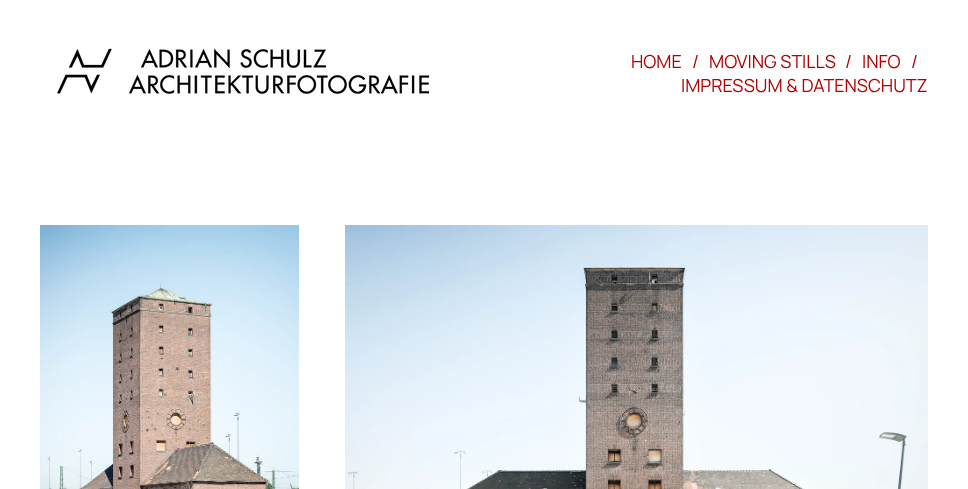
<?xml version="1.0" encoding="UTF-8"?>
<svg xmlns="http://www.w3.org/2000/svg" width="968" height="489">
    <rect width="100%" height="100%" fill="#FFFFFF"/>
    <image x="57" y="48" width="373" height="46" href="img_01.png"/>
    <text x="631" y="68" font-family="Manrope" font-size="18" fill="#B40000">HOME</text>
    <text x="692" y="68" font-family="Manrope" font-size="18" fill="#B40000">/</text>
    <text x="709" y="68" font-family="Manrope" font-size="18" fill="#B40000">MOVING STILLS</text>
    <text x="845" y="68" font-family="Manrope" font-size="18" fill="#B40000">/</text>
    <text x="862" y="68" font-family="Manrope" font-size="18" fill="#B40000">INFO</text>
    <text x="911" y="68" font-family="Manrope" font-size="18" fill="#B40000">/</text>
    <text x="681" y="92" font-family="Manrope" font-size="18" fill="#B40000">IMPRESSUM &amp; DATENSCHUTZ</text>
    <image x="40" y="225" width="259" height="264" href="img_02.png"/>
    <image x="345" y="225" width="583" height="264" href="img_03.png"/>
</svg>
